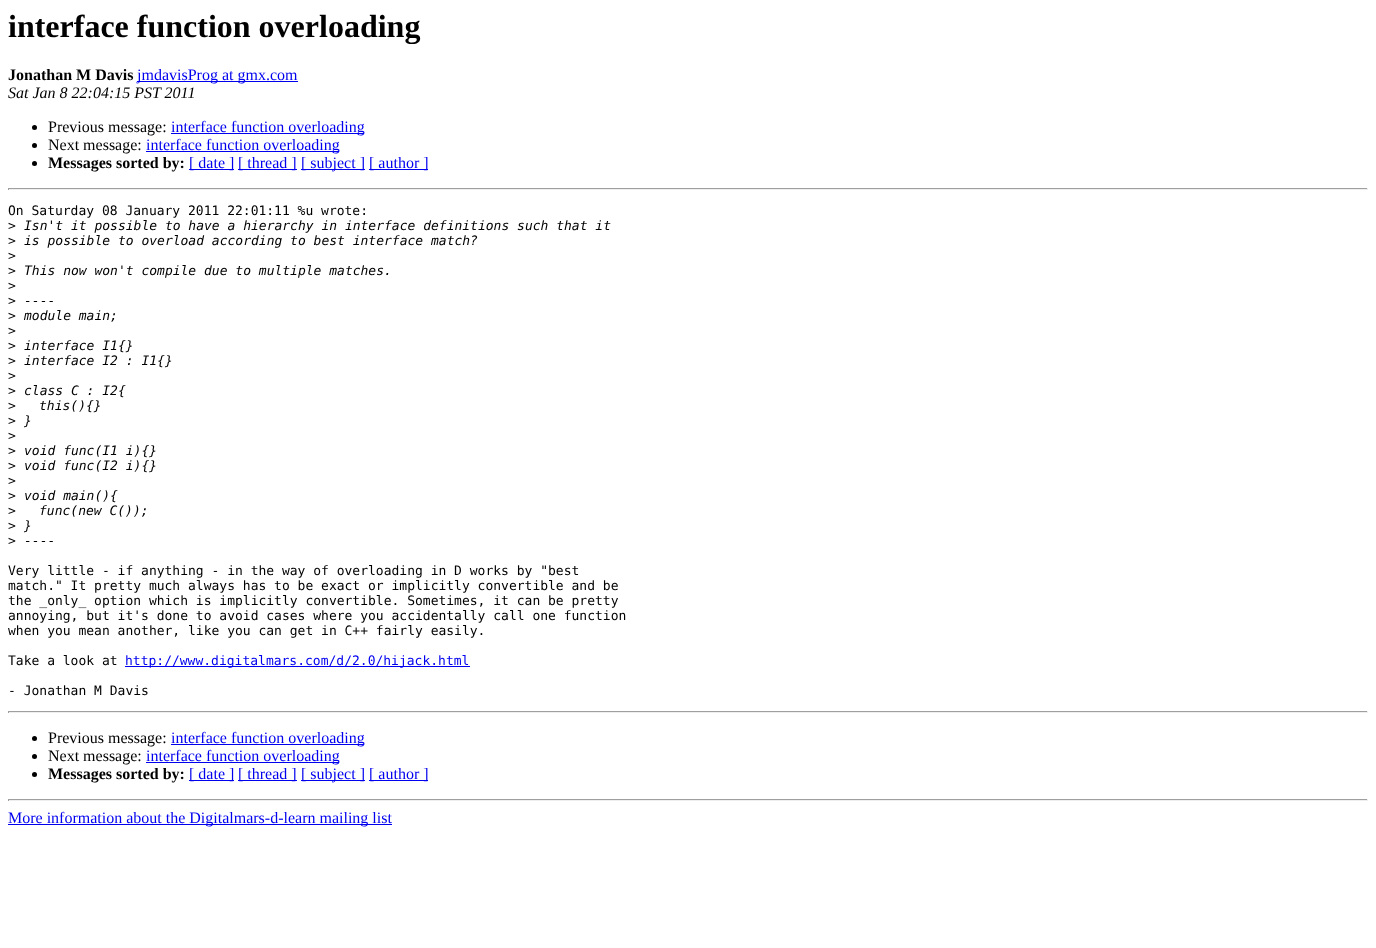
<?xml version="1.0" encoding="UTF-8"?>
<svg xmlns="http://www.w3.org/2000/svg" width="1376" height="948">
    <rect width="100%" height="100%" fill="#FFFFFF"/>
    <text x="8" y="37" font-family="Liberation Serif" font-size="32" font-weight="700" fill="#000000">interface function overloading</text>
    <text x="8" y="80" font-family="Liberation Serif" font-size="16" font-weight="700" fill="#000000">Jonathan M Davis</text>
    <rect x="137" y="81" width="161" height="1" fill="#0000EE"/>
    <text x="137" y="80" font-family="Liberation Serif" font-size="16" fill="#0000EE">jmdavisProg at gmx.com</text>
    <text x="8" y="98" font-family="Liberation Serif" font-size="16" font-style="italic" fill="#000000">Sat Jan 8 22:04:15 PST 2011</text>
    <circle cx="34.5" cy="127.5" r="2.5" fill="#000000"/>
    <text x="48" y="132" font-family="Liberation Serif" font-size="16" fill="#000000">Previous message:</text>
    <rect x="171" y="133" width="193" height="1" fill="#0000EE"/>
    <text x="171" y="132" font-family="Liberation Serif" font-size="16" fill="#0000EE">interface function overloading</text>
    <circle cx="34.5" cy="145.5" r="2.5" fill="#000000"/>
    <text x="48" y="150" font-family="Liberation Serif" font-size="16" fill="#000000">Next message:</text>
    <rect x="146" y="151" width="193" height="1" fill="#0000EE"/>
    <text x="146" y="150" font-family="Liberation Serif" font-size="16" fill="#0000EE">interface function overloading</text>
    <circle cx="34.5" cy="163.5" r="2.5" fill="#000000"/>
    <text x="48" y="168" font-family="Liberation Serif" font-size="16" font-weight="700" fill="#000000">Messages sorted by:</text>
    <rect x="189" y="169" width="45" height="1" fill="#0000EE"/>
    <text x="189" y="168" font-family="Liberation Serif" font-size="16" fill="#0000EE">[ date ]</text>
    <rect x="238" y="169" width="59" height="1" fill="#0000EE"/>
    <text x="238" y="168" font-family="Liberation Serif" font-size="16" fill="#0000EE">[ thread ]</text>
    <rect x="301" y="169" width="64" height="1" fill="#0000EE"/>
    <text x="301" y="168" font-family="Liberation Serif" font-size="16" fill="#0000EE">[ subject ]</text>
    <rect x="369" y="169" width="59" height="1" fill="#0000EE"/>
    <text x="369" y="168" font-family="Liberation Serif" font-size="16" fill="#0000EE">[ author ]</text>
    <rect x="8" y="188" width="1360" height="1" fill="#9F9F9F"/>
    <rect x="1367" y="188" width="1" height="2" fill="#EEEEEE"/>
    <rect x="8" y="189" width="1360" height="1" fill="#EEEEEE"/>
    <rect x="8" y="188" width="1" height="2" fill="#9F9F9F"/>
    <text font-family="DejaVu Sans Mono" font-size="13" fill="#000000">
        <tspan x="8" y="215">On Saturday 08 January 2011 22:01:11 %u wrote:</tspan>
        <tspan x="8" y="230">&gt;</tspan>
    </text>
    <text x="24" y="230" font-family="DejaVu Sans Mono" font-size="13" font-style="italic" fill="#000000">Isn't it possible to have a hierarchy in interface definitions such that it</text>
    <text x="8" y="245" font-family="DejaVu Sans Mono" font-size="13" fill="#000000">&gt;</text>
    <text x="24" y="245" font-family="DejaVu Sans Mono" font-size="13" font-style="italic" fill="#000000">is possible to overload according to best interface match?</text>
    <text font-family="DejaVu Sans Mono" font-size="13" fill="#000000">
        <tspan x="8" y="260">&gt;</tspan>
        <tspan x="8" y="275">&gt;</tspan>
    </text>
    <text x="24" y="275" font-family="DejaVu Sans Mono" font-size="13" font-style="italic" fill="#000000">This now won't compile due to multiple matches.</text>
    <text font-family="DejaVu Sans Mono" font-size="13" fill="#000000">
        <tspan x="8" y="290">&gt;</tspan>
        <tspan x="8" y="305">&gt;</tspan>
    </text>
    <text x="24" y="305" font-family="DejaVu Sans Mono" font-size="13" font-style="italic" fill="#000000">----</text>
    <text x="8" y="320" font-family="DejaVu Sans Mono" font-size="13" fill="#000000">&gt;</text>
    <text x="24" y="320" font-family="DejaVu Sans Mono" font-size="13" font-style="italic" fill="#000000">module main;</text>
    <text font-family="DejaVu Sans Mono" font-size="13" fill="#000000">
        <tspan x="8" y="335">&gt;</tspan>
        <tspan x="8" y="350">&gt;</tspan>
    </text>
    <text x="24" y="350" font-family="DejaVu Sans Mono" font-size="13" font-style="italic" fill="#000000">interface I1{}</text>
    <text x="8" y="365" font-family="DejaVu Sans Mono" font-size="13" fill="#000000">&gt;</text>
    <text x="24" y="365" font-family="DejaVu Sans Mono" font-size="13" font-style="italic" fill="#000000">interface I2 : I1{}</text>
    <text font-family="DejaVu Sans Mono" font-size="13" fill="#000000">
        <tspan x="8" y="380">&gt;</tspan>
        <tspan x="8" y="395">&gt;</tspan>
    </text>
    <text x="24" y="395" font-family="DejaVu Sans Mono" font-size="13" font-style="italic" fill="#000000">class C : I2{</text>
    <text x="8" y="410" font-family="DejaVu Sans Mono" font-size="13" fill="#000000">&gt;</text>
    <text x="39" y="410" font-family="DejaVu Sans Mono" font-size="13" font-style="italic" fill="#000000">this(){}</text>
    <text x="8" y="425" font-family="DejaVu Sans Mono" font-size="13" fill="#000000">&gt;</text>
    <text x="24" y="425" font-family="DejaVu Sans Mono" font-size="13" font-style="italic" fill="#000000">}</text>
    <text font-family="DejaVu Sans Mono" font-size="13" fill="#000000">
        <tspan x="8" y="440">&gt;</tspan>
        <tspan x="8" y="455">&gt;</tspan>
    </text>
    <text x="24" y="455" font-family="DejaVu Sans Mono" font-size="13" font-style="italic" fill="#000000">void func(I1 i){}</text>
    <text x="8" y="470" font-family="DejaVu Sans Mono" font-size="13" fill="#000000">&gt;</text>
    <text x="24" y="470" font-family="DejaVu Sans Mono" font-size="13" font-style="italic" fill="#000000">void func(I2 i){}</text>
    <text font-family="DejaVu Sans Mono" font-size="13" fill="#000000">
        <tspan x="8" y="485">&gt;</tspan>
        <tspan x="8" y="500">&gt;</tspan>
    </text>
    <text x="24" y="500" font-family="DejaVu Sans Mono" font-size="13" font-style="italic" fill="#000000">void main(){</text>
    <text x="8" y="515" font-family="DejaVu Sans Mono" font-size="13" fill="#000000">&gt;</text>
    <text x="39" y="515" font-family="DejaVu Sans Mono" font-size="13" font-style="italic" fill="#000000">func(new C());</text>
    <text x="8" y="530" font-family="DejaVu Sans Mono" font-size="13" fill="#000000">&gt;</text>
    <text x="24" y="530" font-family="DejaVu Sans Mono" font-size="13" font-style="italic" fill="#000000">}</text>
    <text x="8" y="545" font-family="DejaVu Sans Mono" font-size="13" fill="#000000">&gt;</text>
    <text x="24" y="545" font-family="DejaVu Sans Mono" font-size="13" font-style="italic" fill="#000000">----</text>
    <text font-family="DejaVu Sans Mono" font-size="13" fill="#000000">
        <tspan x="8" y="575">Very little - if anything - in the way of overloading in D works by "best</tspan>
        <tspan x="8" y="590">match." It pretty much always has to be exact or implicitly convertible and be</tspan>
        <tspan x="8" y="605">the _only_ option which is implicitly convertible. Sometimes, it can be pretty</tspan>
        <tspan x="8" y="620">annoying, but it's done to avoid cases where you accidentally call one function</tspan>
        <tspan x="8" y="635">when you mean another, like you can get in C++ fairly easily.</tspan>
    </text>
    <text x="8" y="665" font-family="DejaVu Sans Mono" font-size="13" fill="#000000">Take a look at</text>
    <rect x="125" y="666" width="345" height="1" fill="#0000EE"/>
    <text x="125" y="665" font-family="DejaVu Sans Mono" font-size="13" fill="#0000EE">http://www.digitalmars.com/d/2.0/hijack.html</text>
    <text x="8" y="695" font-family="DejaVu Sans Mono" font-size="13" fill="#000000">- Jonathan M Davis</text>
    <rect x="8" y="711" width="1360" height="1" fill="#9F9F9F"/>
    <rect x="1367" y="711" width="1" height="2" fill="#EEEEEE"/>
    <rect x="8" y="712" width="1360" height="1" fill="#EEEEEE"/>
    <rect x="8" y="711" width="1" height="2" fill="#9F9F9F"/>
    <circle cx="34.5" cy="738.5" r="2.5" fill="#000000"/>
    <text x="48" y="743" font-family="Liberation Serif" font-size="16" fill="#000000">Previous message:</text>
    <rect x="171" y="744" width="193" height="1" fill="#0000EE"/>
    <text x="171" y="743" font-family="Liberation Serif" font-size="16" fill="#0000EE">interface function overloading</text>
    <circle cx="34.5" cy="756.5" r="2.5" fill="#000000"/>
    <text x="48" y="761" font-family="Liberation Serif" font-size="16" fill="#000000">Next message:</text>
    <rect x="146" y="762" width="193" height="1" fill="#0000EE"/>
    <text x="146" y="761" font-family="Liberation Serif" font-size="16" fill="#0000EE">interface function overloading</text>
    <circle cx="34.5" cy="774.5" r="2.5" fill="#000000"/>
    <text x="48" y="779" font-family="Liberation Serif" font-size="16" font-weight="700" fill="#000000">Messages sorted by:</text>
    <rect x="189" y="780" width="45" height="1" fill="#0000EE"/>
    <text x="189" y="779" font-family="Liberation Serif" font-size="16" fill="#0000EE">[ date ]</text>
    <rect x="238" y="780" width="59" height="1" fill="#0000EE"/>
    <text x="238" y="779" font-family="Liberation Serif" font-size="16" fill="#0000EE">[ thread ]</text>
    <rect x="301" y="780" width="64" height="1" fill="#0000EE"/>
    <text x="301" y="779" font-family="Liberation Serif" font-size="16" fill="#0000EE">[ subject ]</text>
    <rect x="369" y="780" width="59" height="1" fill="#0000EE"/>
    <text x="369" y="779" font-family="Liberation Serif" font-size="16" fill="#0000EE">[ author ]</text>
    <rect x="8" y="799" width="1360" height="1" fill="#9F9F9F"/>
    <rect x="1367" y="799" width="1" height="2" fill="#EEEEEE"/>
    <rect x="8" y="800" width="1360" height="1" fill="#EEEEEE"/>
    <rect x="8" y="799" width="1" height="2" fill="#9F9F9F"/>
    <rect x="8" y="824" width="384" height="1" fill="#0000EE"/>
    <text x="8" y="823" font-family="Liberation Serif" font-size="16" fill="#0000EE">More information about the Digitalmars-d-learn mailing list</text>
</svg>
